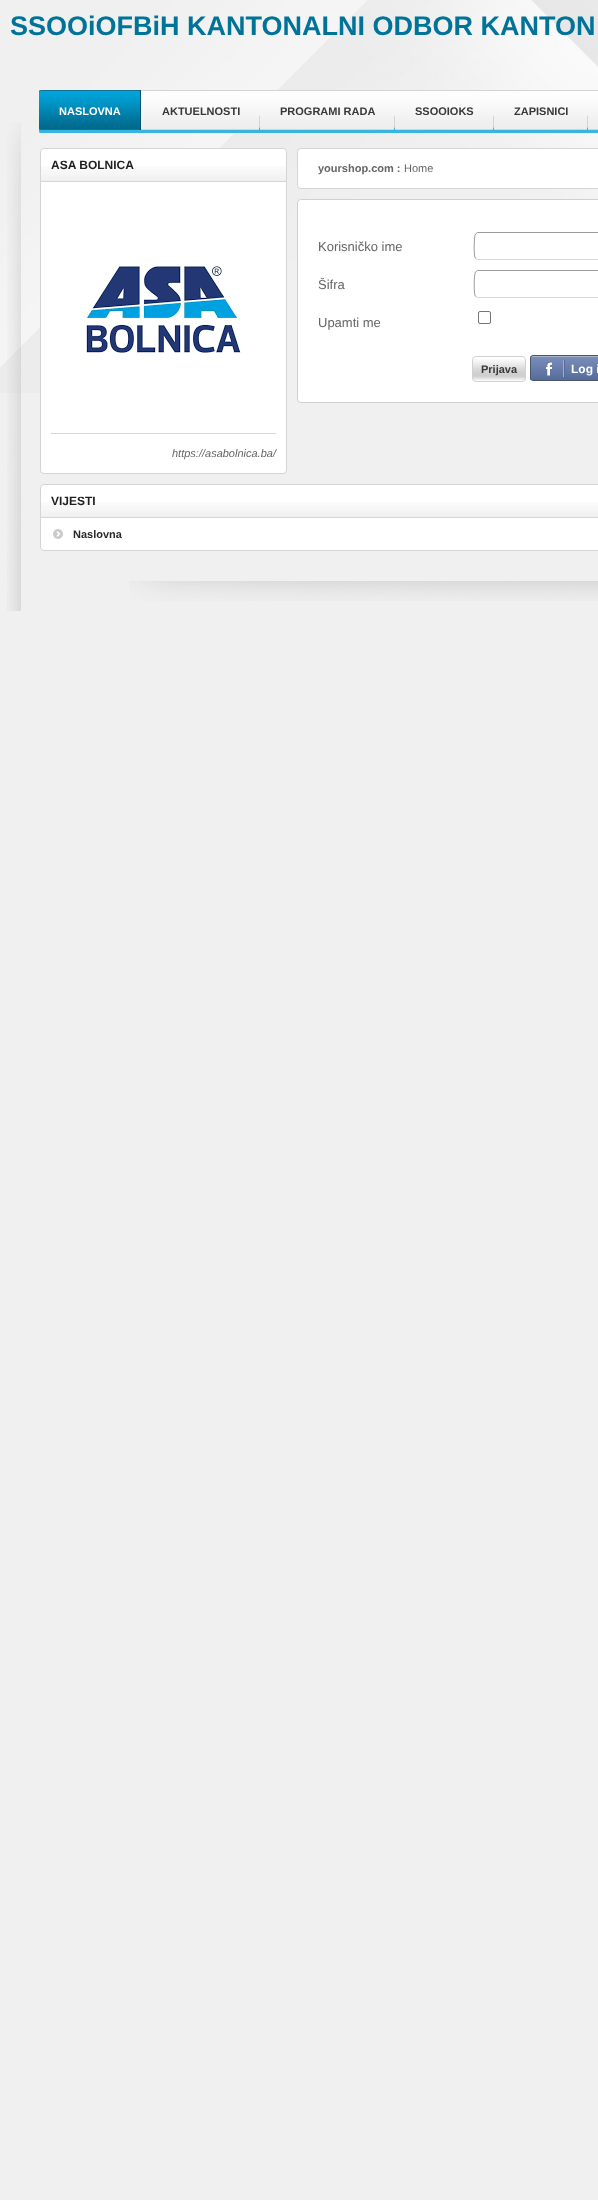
<?xml version="1.0" encoding="UTF-8"?>
<svg xmlns="http://www.w3.org/2000/svg" width="598" height="2200">
    <defs>
        <clipPath id="clip1"><rect x="530" y="355" width="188" height="26" rx="3"/></clipPath>
        <linearGradient id="g1" gradientUnits="userSpaceOnUse" x1="531" y1="356" x2="531" y2="380"><stop offset="0.05" stop-color="#798DB9"/><stop offset="1" stop-color="#556B9B"/></linearGradient>
    </defs>
    <rect width="100%" height="100%" fill="#F0F0F0"/>
    <image x="0" y="0" width="598" height="393" href="img_01.png"/>
    <text x="10" y="35" font-family="Liberation Sans" font-size="27" font-weight="700" fill="#007399">SSOOiOFBiH KANTONALNI ODBOR KANTON</text>
    <image x="7" y="122" width="14" height="489" href="img_02.png"/>
    <image x="40" y="90" width="558" height="43" href="img_03.png"/>
    <image x="39" y="90" width="102" height="43" href="img_04.png"/>
    <rect x="140" y="90" width="1" height="40" fill="#03516D"/>
    <text x="59" y="115" font-family="Liberation Sans" font-size="11" font-weight="700" fill="#FFFFFF">NASLOVNA</text>
    <image x="259" y="115" width="1" height="15" href="img_05.png"/>
    <text x="162" y="115" font-family="Liberation Sans" font-size="11" font-weight="700" fill="#383838">AKTUELNOSTI</text>
    <image x="394" y="115" width="1" height="15" href="img_05.png"/>
    <text x="280" y="115" font-family="Liberation Sans" font-size="11" font-weight="700" fill="#383838">PROGRAMI RADA</text>
    <image x="493" y="115" width="1" height="15" href="img_05.png"/>
    <text x="415" y="115" font-family="Liberation Sans" font-size="11" font-weight="700" fill="#383838">SSOOIOKS</text>
    <image x="587" y="115" width="1" height="15" href="img_05.png"/>
    <text x="514" y="115" font-family="Liberation Sans" font-size="11" font-weight="700" fill="#383838">ZAPISNICI</text>
    <rect x="40.5" y="148.5" width="246" height="325" rx="3.5" fill="#FFFFFF" stroke="#D5D5D5"/>
    <image x="41" y="166" width="245" height="15" href="img_06.png"/>
    <rect x="41" y="181" width="245" height="1" fill="#D5D5D5"/>
    <text x="51" y="169" font-family="Liberation Sans" font-size="12" font-weight="700" fill="#1F1F1F">ASA BOLNICA</text>
    <rect x="51" y="433" width="225" height="1" fill="#D7D7D7"/>
    <image x="85" y="266" width="156" height="88" href="img_07.png"/>
    <text x="172" y="457" font-family="Liberation Sans" font-size="11" font-style="italic" fill="#656565">https://asabolnica.ba/</text>
    <rect x="297.5" y="148.5" width="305" height="40" rx="3.5" fill="#FFFFFF" stroke="#D5D5D5"/>
    <text x="318" y="172" font-family="Liberation Sans" font-size="11" font-weight="700" fill="#656565">yourshop.com :</text>
    <text x="404" y="172" font-family="Liberation Sans" font-size="11" fill="#656565">Home</text>
    <rect x="297.5" y="199.5" width="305" height="203" rx="3.5" fill="#FFFFFF" stroke="#D0D0D0"/>
    <text x="318" y="251" font-family="Liberation Sans" font-size="13" fill="#656565">Korisničko ime</text>
    <path d="M 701.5 233.5 C 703.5 235.5 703 256.5 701.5 258 L 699.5 259.5 H 478 L 475.5 258.5" fill="none" stroke="#D8D8D8"/>
    <path d="M 475.5 258.5 C 473.5 256.5 474 235.5 475.5 234 L 477.5 232.5 H 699 L 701.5 233.5" fill="none" stroke="#9B9B9B"/>
    <text x="318" y="289" font-family="Liberation Sans" font-size="13" fill="#656565">Šifra</text>
    <path d="M 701.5 271.5 C 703.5 273.5 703 294.5 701.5 296 L 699.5 297.5 H 478 L 475.5 296.5" fill="none" stroke="#D8D8D8"/>
    <path d="M 475.5 296.5 C 473.5 294.5 474 273.5 475.5 272 L 477.5 270.5 H 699 L 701.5 271.5" fill="none" stroke="#9B9B9B"/>
    <text x="318" y="327" font-family="Liberation Sans" font-size="13" fill="#656565">Upamti me</text>
    <rect x="478.5" y="311.5" width="12" height="12" rx="1.5" fill="none" stroke="#767676"/>
    <image x="472" y="359" width="54" height="22" href="img_08.png"/>
    <rect x="472.5" y="356.5" width="53" height="25" rx="3.5" fill="none" stroke="#D1D1D1"/>
    <text x="481" y="373" font-family="Liberation Sans" font-size="11" font-weight="700" fill="#383838">Prijava</text>
    <g clip-path="url(#clip1)">
        <rect x="530" y="356" width="68" height="24" fill="url(#g1)"/>
    </g>
    <path d="M 533 357 H 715 C 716 357 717 358 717 359 V 358 C 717 357 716 356 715 356 H 533 C 532 356 531 357 531 358 V 359 C 531 358 532 357 533 357 Z" fill="#AAB5CD"/>
    <rect x="530.5" y="355.5" width="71" height="25" rx="2.5" fill="none" stroke="#4D576B"/>
    <rect x="564" y="360" width="1" height="17" fill="#556A9A"/>
    <image x="546" y="362" width="6" height="14" href="img_09.png"/>
    <rect x="563" y="360" width="1" height="17" fill="#A0AECD"/>
    <text x="571" y="373" font-family="Liberation Sans" font-size="12" font-weight="700" fill="#FFFFFF">Log i</text>
    <rect x="40.5" y="484.5" width="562" height="66" rx="3.5" fill="#FFFFFF" stroke="#D5D5D5"/>
    <image x="41" y="502" width="557" height="15" href="img_10.png"/>
    <rect x="41" y="517" width="557" height="1" fill="#D5D5D5"/>
    <text x="51" y="505" font-family="Liberation Sans" font-size="12" font-weight="700" fill="#1F1F1F">VIJESTI</text>
    <image x="53" y="529" width="10" height="10" href="img_11.png"/>
    <text x="73" y="538" font-family="Liberation Sans" font-size="11" font-weight="700" fill="#292929">Naslovna</text>
    <image x="129" y="581" width="469" height="20" href="img_12.png"/>
</svg>
